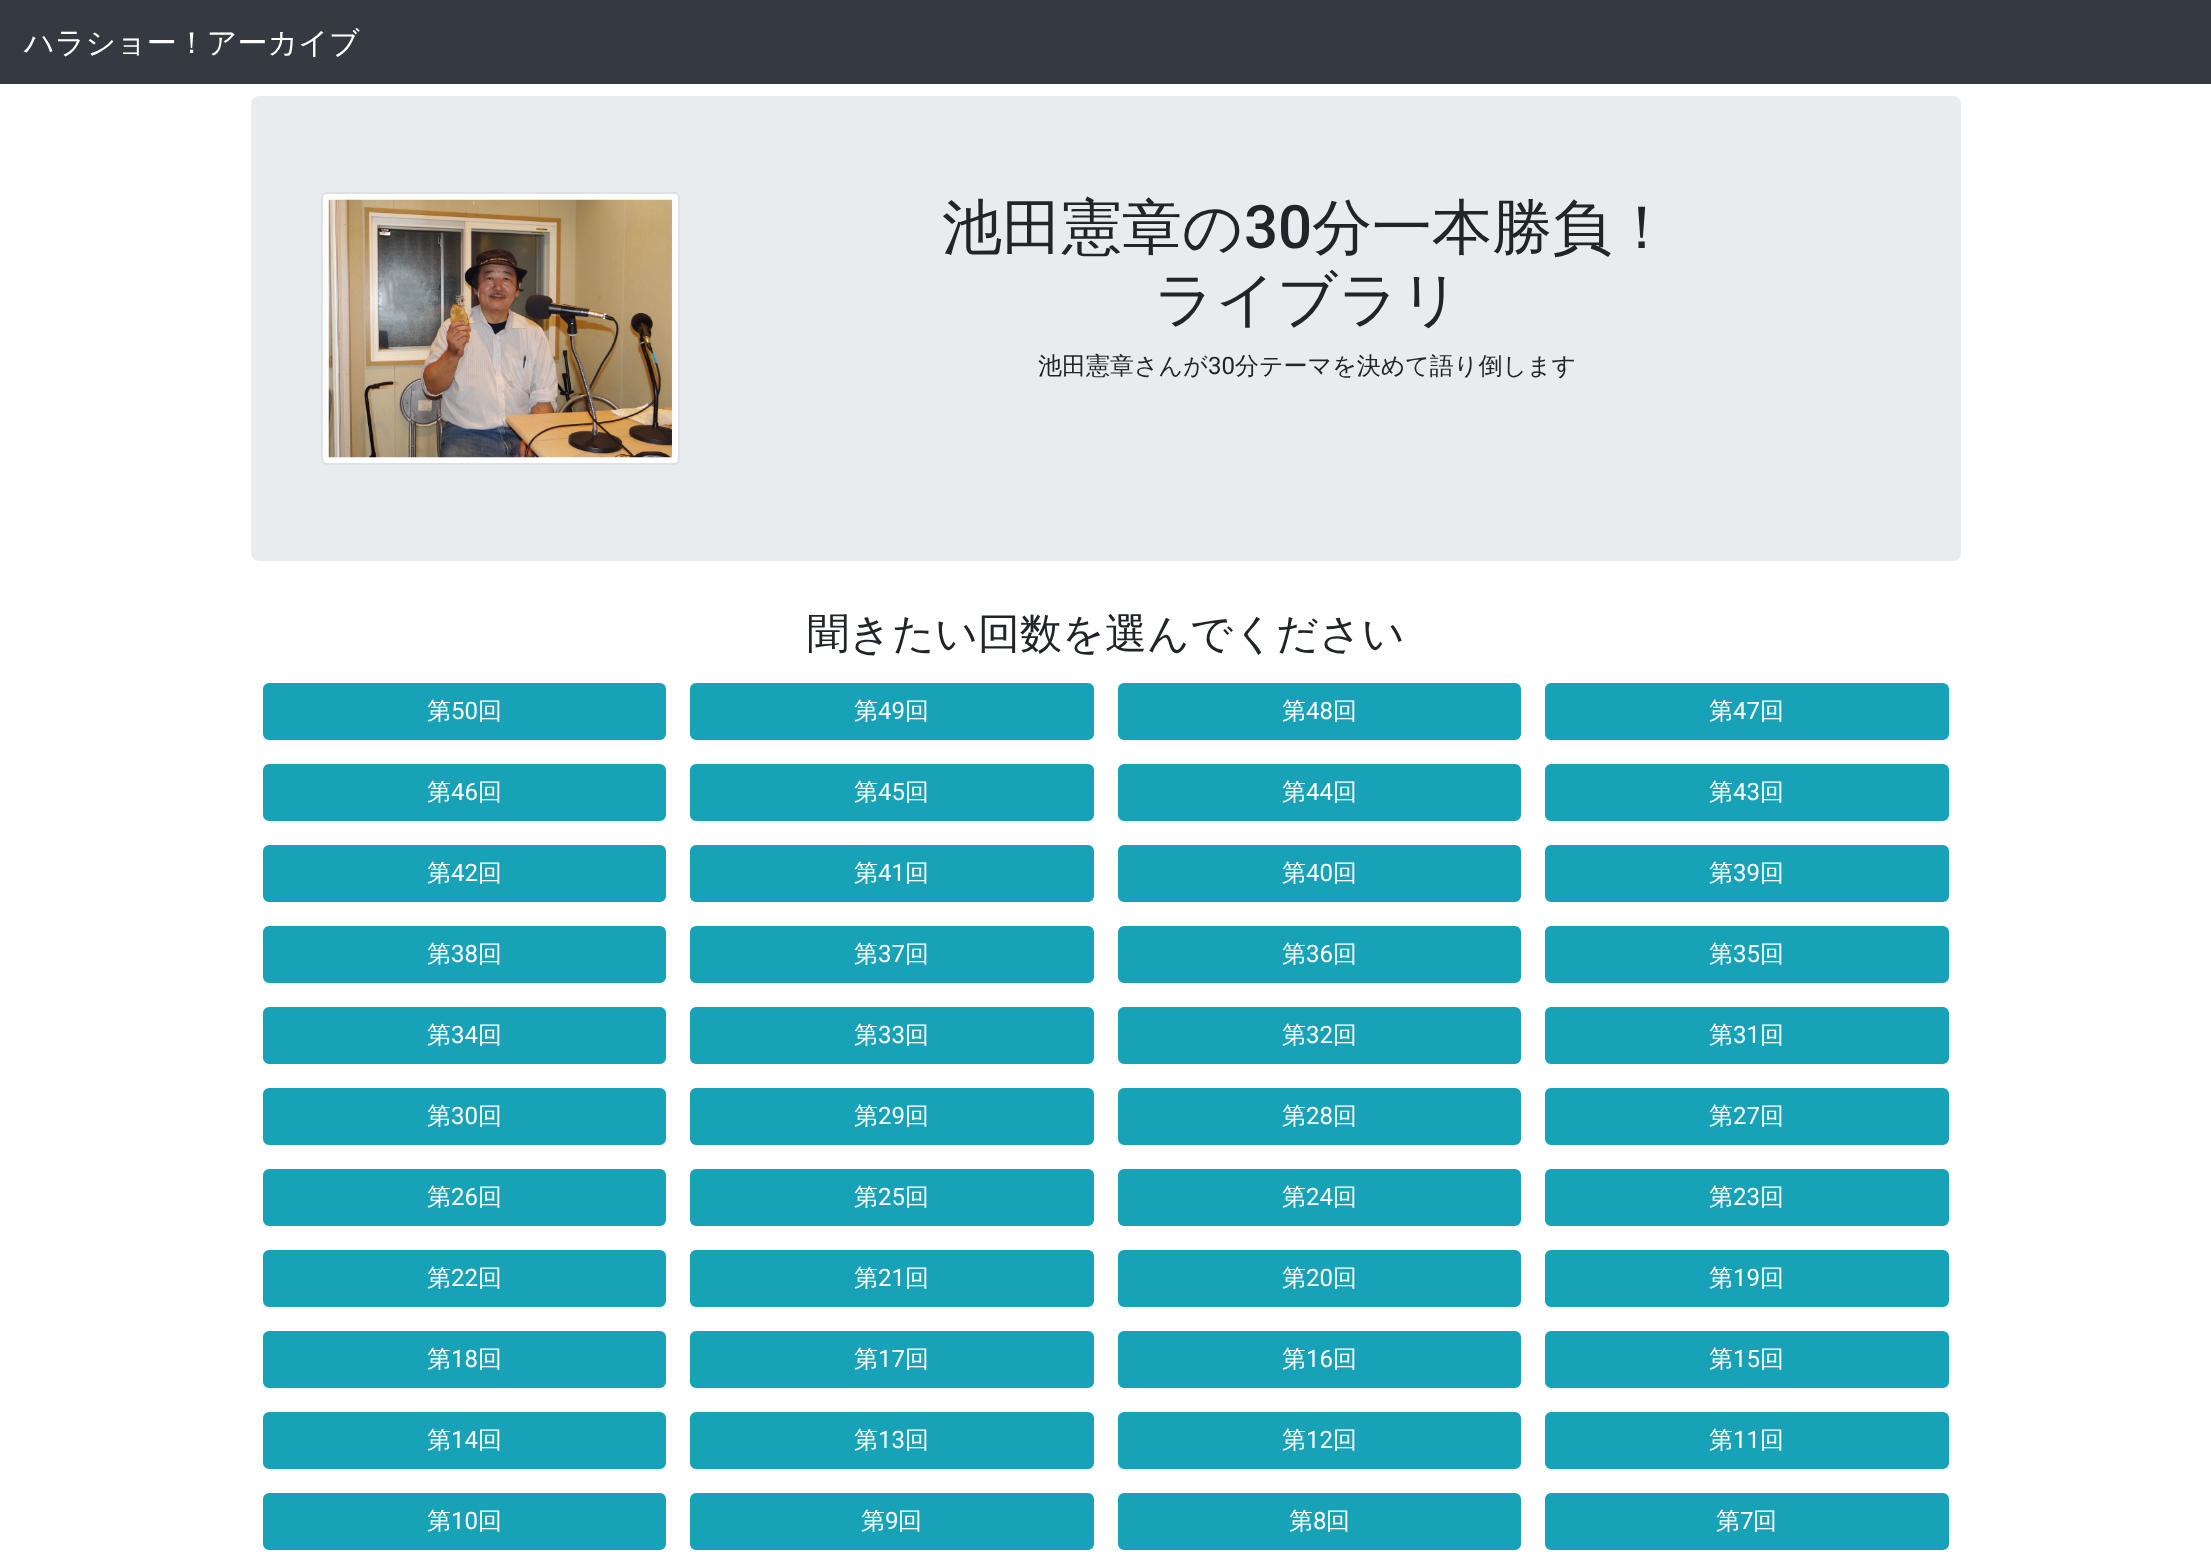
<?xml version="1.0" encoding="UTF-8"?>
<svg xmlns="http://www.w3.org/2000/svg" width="2211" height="1552">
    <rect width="100%" height="100%" fill="#FFFFFF"/>
    <rect x="0" y="0" width="2211" height="84" fill="#343A40"/>
    <text x="24" y="53" font-family="WenQuanYi Zen Hei" font-size="30" font-weight="500" fill="#FFFFFF">ハラショー！アーカイブ</text>
    <rect x="251" y="96" width="1710" height="465" rx="8" fill="#E9ECEF"/>
    <rect x="322" y="193" width="357" height="271" rx="5" fill="#FFFFFF" stroke="#DEE2E6" stroke-width="2"/>
    <image x="328" y="199" width="344" height="259" href="img_01.png"/>
    <text x="942" y="248" font-family="WenQuanYi Zen Hei" font-size="60" font-weight="500" fill="#212529">池田憲章の</text>
    <text x="1244" y="248" font-family="Roboto" font-size="60" font-weight="500" fill="#212529">30</text>
    <text x="1312" y="248" font-family="WenQuanYi Zen Hei" font-size="60" font-weight="500" fill="#212529">分一本勝負！</text>
    <text x="1154" y="320" font-family="WenQuanYi Zen Hei" font-size="60" font-weight="500" fill="#212529">ライブラリ</text>
    <text x="1038" y="374" font-family="WenQuanYi Zen Hei" font-size="24" font-weight="500" fill="#212529">池田憲章さんが</text>
    <text x="1208" y="374" font-family="Roboto" font-size="24" fill="#212529">30</text>
    <text x="1235" y="374" font-family="WenQuanYi Zen Hei" font-size="24" font-weight="500" fill="#212529">分テーマを決めて語り倒します</text>
    <text x="807" y="648" font-family="WenQuanYi Zen Hei" font-size="42" font-weight="500" fill="#212529">聞きたい回数を選んでください</text>
    <rect x="264" y="684" width="401" height="55" rx="5" fill="#17A2B8" stroke="#17A2B8" stroke-width="2"/>
    <text x="427" y="719" font-family="WenQuanYi Zen Hei" font-size="24" font-weight="500" fill="#FFFFFF">第</text>
    <text x="451" y="719" font-family="Roboto" font-size="24" fill="#FFFFFF">50</text>
    <text x="478" y="719" font-family="WenQuanYi Zen Hei" font-size="24" font-weight="500" fill="#FFFFFF">回</text>
    <rect x="691" y="684" width="402" height="55" rx="5" fill="#17A2B8" stroke="#17A2B8" stroke-width="2"/>
    <text x="854" y="719" font-family="WenQuanYi Zen Hei" font-size="24" font-weight="500" fill="#FFFFFF">第</text>
    <text x="878" y="719" font-family="Roboto" font-size="24" fill="#FFFFFF">49</text>
    <text x="905" y="719" font-family="WenQuanYi Zen Hei" font-size="24" font-weight="500" fill="#FFFFFF">回</text>
    <rect x="1119" y="684" width="401" height="55" rx="5" fill="#17A2B8" stroke="#17A2B8" stroke-width="2"/>
    <text x="1282" y="719" font-family="WenQuanYi Zen Hei" font-size="24" font-weight="500" fill="#FFFFFF">第</text>
    <text x="1306" y="719" font-family="Roboto" font-size="24" fill="#FFFFFF">48</text>
    <text x="1333" y="719" font-family="WenQuanYi Zen Hei" font-size="24" font-weight="500" fill="#FFFFFF">回</text>
    <rect x="1546" y="684" width="402" height="55" rx="5" fill="#17A2B8" stroke="#17A2B8" stroke-width="2"/>
    <text x="1709" y="719" font-family="WenQuanYi Zen Hei" font-size="24" font-weight="500" fill="#FFFFFF">第</text>
    <text x="1733" y="719" font-family="Roboto" font-size="24" fill="#FFFFFF">47</text>
    <text x="1760" y="719" font-family="WenQuanYi Zen Hei" font-size="24" font-weight="500" fill="#FFFFFF">回</text>
    <rect x="264" y="765" width="401" height="55" rx="5" fill="#17A2B8" stroke="#17A2B8" stroke-width="2"/>
    <text x="427" y="800" font-family="WenQuanYi Zen Hei" font-size="24" font-weight="500" fill="#FFFFFF">第</text>
    <text x="451" y="800" font-family="Roboto" font-size="24" fill="#FFFFFF">46</text>
    <text x="478" y="800" font-family="WenQuanYi Zen Hei" font-size="24" font-weight="500" fill="#FFFFFF">回</text>
    <rect x="691" y="765" width="402" height="55" rx="5" fill="#17A2B8" stroke="#17A2B8" stroke-width="2"/>
    <text x="854" y="800" font-family="WenQuanYi Zen Hei" font-size="24" font-weight="500" fill="#FFFFFF">第</text>
    <text x="878" y="800" font-family="Roboto" font-size="24" fill="#FFFFFF">45</text>
    <text x="905" y="800" font-family="WenQuanYi Zen Hei" font-size="24" font-weight="500" fill="#FFFFFF">回</text>
    <rect x="1119" y="765" width="401" height="55" rx="5" fill="#17A2B8" stroke="#17A2B8" stroke-width="2"/>
    <text x="1282" y="800" font-family="WenQuanYi Zen Hei" font-size="24" font-weight="500" fill="#FFFFFF">第</text>
    <text x="1306" y="800" font-family="Roboto" font-size="24" fill="#FFFFFF">44</text>
    <text x="1333" y="800" font-family="WenQuanYi Zen Hei" font-size="24" font-weight="500" fill="#FFFFFF">回</text>
    <rect x="1546" y="765" width="402" height="55" rx="5" fill="#17A2B8" stroke="#17A2B8" stroke-width="2"/>
    <text x="1709" y="800" font-family="WenQuanYi Zen Hei" font-size="24" font-weight="500" fill="#FFFFFF">第</text>
    <text x="1733" y="800" font-family="Roboto" font-size="24" fill="#FFFFFF">43</text>
    <text x="1760" y="800" font-family="WenQuanYi Zen Hei" font-size="24" font-weight="500" fill="#FFFFFF">回</text>
    <rect x="264" y="846" width="401" height="55" rx="5" fill="#17A2B8" stroke="#17A2B8" stroke-width="2"/>
    <text x="427" y="881" font-family="WenQuanYi Zen Hei" font-size="24" font-weight="500" fill="#FFFFFF">第</text>
    <text x="451" y="881" font-family="Roboto" font-size="24" fill="#FFFFFF">42</text>
    <text x="478" y="881" font-family="WenQuanYi Zen Hei" font-size="24" font-weight="500" fill="#FFFFFF">回</text>
    <rect x="691" y="846" width="402" height="55" rx="5" fill="#17A2B8" stroke="#17A2B8" stroke-width="2"/>
    <text x="854" y="881" font-family="WenQuanYi Zen Hei" font-size="24" font-weight="500" fill="#FFFFFF">第</text>
    <text x="878" y="881" font-family="Roboto" font-size="24" fill="#FFFFFF">41</text>
    <text x="905" y="881" font-family="WenQuanYi Zen Hei" font-size="24" font-weight="500" fill="#FFFFFF">回</text>
    <rect x="1119" y="846" width="401" height="55" rx="5" fill="#17A2B8" stroke="#17A2B8" stroke-width="2"/>
    <text x="1282" y="881" font-family="WenQuanYi Zen Hei" font-size="24" font-weight="500" fill="#FFFFFF">第</text>
    <text x="1306" y="881" font-family="Roboto" font-size="24" fill="#FFFFFF">40</text>
    <text x="1333" y="881" font-family="WenQuanYi Zen Hei" font-size="24" font-weight="500" fill="#FFFFFF">回</text>
    <rect x="1546" y="846" width="402" height="55" rx="5" fill="#17A2B8" stroke="#17A2B8" stroke-width="2"/>
    <text x="1709" y="881" font-family="WenQuanYi Zen Hei" font-size="24" font-weight="500" fill="#FFFFFF">第</text>
    <text x="1733" y="881" font-family="Roboto" font-size="24" fill="#FFFFFF">39</text>
    <text x="1760" y="881" font-family="WenQuanYi Zen Hei" font-size="24" font-weight="500" fill="#FFFFFF">回</text>
    <rect x="264" y="927" width="401" height="55" rx="5" fill="#17A2B8" stroke="#17A2B8" stroke-width="2"/>
    <text x="427" y="962" font-family="WenQuanYi Zen Hei" font-size="24" font-weight="500" fill="#FFFFFF">第</text>
    <text x="451" y="962" font-family="Roboto" font-size="24" fill="#FFFFFF">38</text>
    <text x="478" y="962" font-family="WenQuanYi Zen Hei" font-size="24" font-weight="500" fill="#FFFFFF">回</text>
    <rect x="691" y="927" width="402" height="55" rx="5" fill="#17A2B8" stroke="#17A2B8" stroke-width="2"/>
    <text x="854" y="962" font-family="WenQuanYi Zen Hei" font-size="24" font-weight="500" fill="#FFFFFF">第</text>
    <text x="878" y="962" font-family="Roboto" font-size="24" fill="#FFFFFF">37</text>
    <text x="905" y="962" font-family="WenQuanYi Zen Hei" font-size="24" font-weight="500" fill="#FFFFFF">回</text>
    <rect x="1119" y="927" width="401" height="55" rx="5" fill="#17A2B8" stroke="#17A2B8" stroke-width="2"/>
    <text x="1282" y="962" font-family="WenQuanYi Zen Hei" font-size="24" font-weight="500" fill="#FFFFFF">第</text>
    <text x="1306" y="962" font-family="Roboto" font-size="24" fill="#FFFFFF">36</text>
    <text x="1333" y="962" font-family="WenQuanYi Zen Hei" font-size="24" font-weight="500" fill="#FFFFFF">回</text>
    <rect x="1546" y="927" width="402" height="55" rx="5" fill="#17A2B8" stroke="#17A2B8" stroke-width="2"/>
    <text x="1709" y="962" font-family="WenQuanYi Zen Hei" font-size="24" font-weight="500" fill="#FFFFFF">第</text>
    <text x="1733" y="962" font-family="Roboto" font-size="24" fill="#FFFFFF">35</text>
    <text x="1760" y="962" font-family="WenQuanYi Zen Hei" font-size="24" font-weight="500" fill="#FFFFFF">回</text>
    <rect x="264" y="1008" width="401" height="55" rx="5" fill="#17A2B8" stroke="#17A2B8" stroke-width="2"/>
    <text x="427" y="1043" font-family="WenQuanYi Zen Hei" font-size="24" font-weight="500" fill="#FFFFFF">第</text>
    <text x="451" y="1043" font-family="Roboto" font-size="24" fill="#FFFFFF">34</text>
    <text x="478" y="1043" font-family="WenQuanYi Zen Hei" font-size="24" font-weight="500" fill="#FFFFFF">回</text>
    <rect x="691" y="1008" width="402" height="55" rx="5" fill="#17A2B8" stroke="#17A2B8" stroke-width="2"/>
    <text x="854" y="1043" font-family="WenQuanYi Zen Hei" font-size="24" font-weight="500" fill="#FFFFFF">第</text>
    <text x="878" y="1043" font-family="Roboto" font-size="24" fill="#FFFFFF">33</text>
    <text x="905" y="1043" font-family="WenQuanYi Zen Hei" font-size="24" font-weight="500" fill="#FFFFFF">回</text>
    <rect x="1119" y="1008" width="401" height="55" rx="5" fill="#17A2B8" stroke="#17A2B8" stroke-width="2"/>
    <text x="1282" y="1043" font-family="WenQuanYi Zen Hei" font-size="24" font-weight="500" fill="#FFFFFF">第</text>
    <text x="1306" y="1043" font-family="Roboto" font-size="24" fill="#FFFFFF">32</text>
    <text x="1333" y="1043" font-family="WenQuanYi Zen Hei" font-size="24" font-weight="500" fill="#FFFFFF">回</text>
    <rect x="1546" y="1008" width="402" height="55" rx="5" fill="#17A2B8" stroke="#17A2B8" stroke-width="2"/>
    <text x="1709" y="1043" font-family="WenQuanYi Zen Hei" font-size="24" font-weight="500" fill="#FFFFFF">第</text>
    <text x="1733" y="1043" font-family="Roboto" font-size="24" fill="#FFFFFF">31</text>
    <text x="1760" y="1043" font-family="WenQuanYi Zen Hei" font-size="24" font-weight="500" fill="#FFFFFF">回</text>
    <rect x="264" y="1089" width="401" height="55" rx="5" fill="#17A2B8" stroke="#17A2B8" stroke-width="2"/>
    <text x="427" y="1124" font-family="WenQuanYi Zen Hei" font-size="24" font-weight="500" fill="#FFFFFF">第</text>
    <text x="451" y="1124" font-family="Roboto" font-size="24" fill="#FFFFFF">30</text>
    <text x="478" y="1124" font-family="WenQuanYi Zen Hei" font-size="24" font-weight="500" fill="#FFFFFF">回</text>
    <rect x="691" y="1089" width="402" height="55" rx="5" fill="#17A2B8" stroke="#17A2B8" stroke-width="2"/>
    <text x="854" y="1124" font-family="WenQuanYi Zen Hei" font-size="24" font-weight="500" fill="#FFFFFF">第</text>
    <text x="878" y="1124" font-family="Roboto" font-size="24" fill="#FFFFFF">29</text>
    <text x="905" y="1124" font-family="WenQuanYi Zen Hei" font-size="24" font-weight="500" fill="#FFFFFF">回</text>
    <rect x="1119" y="1089" width="401" height="55" rx="5" fill="#17A2B8" stroke="#17A2B8" stroke-width="2"/>
    <text x="1282" y="1124" font-family="WenQuanYi Zen Hei" font-size="24" font-weight="500" fill="#FFFFFF">第</text>
    <text x="1306" y="1124" font-family="Roboto" font-size="24" fill="#FFFFFF">28</text>
    <text x="1333" y="1124" font-family="WenQuanYi Zen Hei" font-size="24" font-weight="500" fill="#FFFFFF">回</text>
    <rect x="1546" y="1089" width="402" height="55" rx="5" fill="#17A2B8" stroke="#17A2B8" stroke-width="2"/>
    <text x="1709" y="1124" font-family="WenQuanYi Zen Hei" font-size="24" font-weight="500" fill="#FFFFFF">第</text>
    <text x="1733" y="1124" font-family="Roboto" font-size="24" fill="#FFFFFF">27</text>
    <text x="1760" y="1124" font-family="WenQuanYi Zen Hei" font-size="24" font-weight="500" fill="#FFFFFF">回</text>
    <rect x="264" y="1170" width="401" height="55" rx="5" fill="#17A2B8" stroke="#17A2B8" stroke-width="2"/>
    <text x="427" y="1205" font-family="WenQuanYi Zen Hei" font-size="24" font-weight="500" fill="#FFFFFF">第</text>
    <text x="451" y="1205" font-family="Roboto" font-size="24" fill="#FFFFFF">26</text>
    <text x="478" y="1205" font-family="WenQuanYi Zen Hei" font-size="24" font-weight="500" fill="#FFFFFF">回</text>
    <rect x="691" y="1170" width="402" height="55" rx="5" fill="#17A2B8" stroke="#17A2B8" stroke-width="2"/>
    <text x="854" y="1205" font-family="WenQuanYi Zen Hei" font-size="24" font-weight="500" fill="#FFFFFF">第</text>
    <text x="878" y="1205" font-family="Roboto" font-size="24" fill="#FFFFFF">25</text>
    <text x="905" y="1205" font-family="WenQuanYi Zen Hei" font-size="24" font-weight="500" fill="#FFFFFF">回</text>
    <rect x="1119" y="1170" width="401" height="55" rx="5" fill="#17A2B8" stroke="#17A2B8" stroke-width="2"/>
    <text x="1282" y="1205" font-family="WenQuanYi Zen Hei" font-size="24" font-weight="500" fill="#FFFFFF">第</text>
    <text x="1306" y="1205" font-family="Roboto" font-size="24" fill="#FFFFFF">24</text>
    <text x="1333" y="1205" font-family="WenQuanYi Zen Hei" font-size="24" font-weight="500" fill="#FFFFFF">回</text>
    <rect x="1546" y="1170" width="402" height="55" rx="5" fill="#17A2B8" stroke="#17A2B8" stroke-width="2"/>
    <text x="1709" y="1205" font-family="WenQuanYi Zen Hei" font-size="24" font-weight="500" fill="#FFFFFF">第</text>
    <text x="1733" y="1205" font-family="Roboto" font-size="24" fill="#FFFFFF">23</text>
    <text x="1760" y="1205" font-family="WenQuanYi Zen Hei" font-size="24" font-weight="500" fill="#FFFFFF">回</text>
    <rect x="264" y="1251" width="401" height="55" rx="5" fill="#17A2B8" stroke="#17A2B8" stroke-width="2"/>
    <text x="427" y="1286" font-family="WenQuanYi Zen Hei" font-size="24" font-weight="500" fill="#FFFFFF">第</text>
    <text x="451" y="1286" font-family="Roboto" font-size="24" fill="#FFFFFF">22</text>
    <text x="478" y="1286" font-family="WenQuanYi Zen Hei" font-size="24" font-weight="500" fill="#FFFFFF">回</text>
    <rect x="691" y="1251" width="402" height="55" rx="5" fill="#17A2B8" stroke="#17A2B8" stroke-width="2"/>
    <text x="854" y="1286" font-family="WenQuanYi Zen Hei" font-size="24" font-weight="500" fill="#FFFFFF">第</text>
    <text x="878" y="1286" font-family="Roboto" font-size="24" fill="#FFFFFF">21</text>
    <text x="905" y="1286" font-family="WenQuanYi Zen Hei" font-size="24" font-weight="500" fill="#FFFFFF">回</text>
    <rect x="1119" y="1251" width="401" height="55" rx="5" fill="#17A2B8" stroke="#17A2B8" stroke-width="2"/>
    <text x="1282" y="1286" font-family="WenQuanYi Zen Hei" font-size="24" font-weight="500" fill="#FFFFFF">第</text>
    <text x="1306" y="1286" font-family="Roboto" font-size="24" fill="#FFFFFF">20</text>
    <text x="1333" y="1286" font-family="WenQuanYi Zen Hei" font-size="24" font-weight="500" fill="#FFFFFF">回</text>
    <rect x="1546" y="1251" width="402" height="55" rx="5" fill="#17A2B8" stroke="#17A2B8" stroke-width="2"/>
    <text x="1709" y="1286" font-family="WenQuanYi Zen Hei" font-size="24" font-weight="500" fill="#FFFFFF">第</text>
    <text x="1733" y="1286" font-family="Roboto" font-size="24" fill="#FFFFFF">19</text>
    <text x="1760" y="1286" font-family="WenQuanYi Zen Hei" font-size="24" font-weight="500" fill="#FFFFFF">回</text>
    <rect x="264" y="1332" width="401" height="55" rx="5" fill="#17A2B8" stroke="#17A2B8" stroke-width="2"/>
    <text x="427" y="1367" font-family="WenQuanYi Zen Hei" font-size="24" font-weight="500" fill="#FFFFFF">第</text>
    <text x="451" y="1367" font-family="Roboto" font-size="24" fill="#FFFFFF">18</text>
    <text x="478" y="1367" font-family="WenQuanYi Zen Hei" font-size="24" font-weight="500" fill="#FFFFFF">回</text>
    <rect x="691" y="1332" width="402" height="55" rx="5" fill="#17A2B8" stroke="#17A2B8" stroke-width="2"/>
    <text x="854" y="1367" font-family="WenQuanYi Zen Hei" font-size="24" font-weight="500" fill="#FFFFFF">第</text>
    <text x="878" y="1367" font-family="Roboto" font-size="24" fill="#FFFFFF">17</text>
    <text x="905" y="1367" font-family="WenQuanYi Zen Hei" font-size="24" font-weight="500" fill="#FFFFFF">回</text>
    <rect x="1119" y="1332" width="401" height="55" rx="5" fill="#17A2B8" stroke="#17A2B8" stroke-width="2"/>
    <text x="1282" y="1367" font-family="WenQuanYi Zen Hei" font-size="24" font-weight="500" fill="#FFFFFF">第</text>
    <text x="1306" y="1367" font-family="Roboto" font-size="24" fill="#FFFFFF">16</text>
    <text x="1333" y="1367" font-family="WenQuanYi Zen Hei" font-size="24" font-weight="500" fill="#FFFFFF">回</text>
    <rect x="1546" y="1332" width="402" height="55" rx="5" fill="#17A2B8" stroke="#17A2B8" stroke-width="2"/>
    <text x="1709" y="1367" font-family="WenQuanYi Zen Hei" font-size="24" font-weight="500" fill="#FFFFFF">第</text>
    <text x="1733" y="1367" font-family="Roboto" font-size="24" fill="#FFFFFF">15</text>
    <text x="1760" y="1367" font-family="WenQuanYi Zen Hei" font-size="24" font-weight="500" fill="#FFFFFF">回</text>
    <rect x="264" y="1413" width="401" height="55" rx="5" fill="#17A2B8" stroke="#17A2B8" stroke-width="2"/>
    <text x="427" y="1448" font-family="WenQuanYi Zen Hei" font-size="24" font-weight="500" fill="#FFFFFF">第</text>
    <text x="451" y="1448" font-family="Roboto" font-size="24" fill="#FFFFFF">14</text>
    <text x="478" y="1448" font-family="WenQuanYi Zen Hei" font-size="24" font-weight="500" fill="#FFFFFF">回</text>
    <rect x="691" y="1413" width="402" height="55" rx="5" fill="#17A2B8" stroke="#17A2B8" stroke-width="2"/>
    <text x="854" y="1448" font-family="WenQuanYi Zen Hei" font-size="24" font-weight="500" fill="#FFFFFF">第</text>
    <text x="878" y="1448" font-family="Roboto" font-size="24" fill="#FFFFFF">13</text>
    <text x="905" y="1448" font-family="WenQuanYi Zen Hei" font-size="24" font-weight="500" fill="#FFFFFF">回</text>
    <rect x="1119" y="1413" width="401" height="55" rx="5" fill="#17A2B8" stroke="#17A2B8" stroke-width="2"/>
    <text x="1282" y="1448" font-family="WenQuanYi Zen Hei" font-size="24" font-weight="500" fill="#FFFFFF">第</text>
    <text x="1306" y="1448" font-family="Roboto" font-size="24" fill="#FFFFFF">12</text>
    <text x="1333" y="1448" font-family="WenQuanYi Zen Hei" font-size="24" font-weight="500" fill="#FFFFFF">回</text>
    <rect x="1546" y="1413" width="402" height="55" rx="5" fill="#17A2B8" stroke="#17A2B8" stroke-width="2"/>
    <text x="1709" y="1448" font-family="WenQuanYi Zen Hei" font-size="24" font-weight="500" fill="#FFFFFF">第</text>
    <text x="1733" y="1448" font-family="Roboto" font-size="24" fill="#FFFFFF">11</text>
    <text x="1760" y="1448" font-family="WenQuanYi Zen Hei" font-size="24" font-weight="500" fill="#FFFFFF">回</text>
    <rect x="264" y="1494" width="401" height="55" rx="5" fill="#17A2B8" stroke="#17A2B8" stroke-width="2"/>
    <text x="427" y="1529" font-family="WenQuanYi Zen Hei" font-size="24" font-weight="500" fill="#FFFFFF">第</text>
    <text x="451" y="1529" font-family="Roboto" font-size="24" fill="#FFFFFF">10</text>
    <text x="478" y="1529" font-family="WenQuanYi Zen Hei" font-size="24" font-weight="500" fill="#FFFFFF">回</text>
    <rect x="691" y="1494" width="402" height="55" rx="5" fill="#17A2B8" stroke="#17A2B8" stroke-width="2"/>
    <text x="861" y="1529" font-family="WenQuanYi Zen Hei" font-size="24" font-weight="500" fill="#FFFFFF">第</text>
    <text x="885" y="1529" font-family="Roboto" font-size="24" fill="#FFFFFF">9</text>
    <text x="898" y="1529" font-family="WenQuanYi Zen Hei" font-size="24" font-weight="500" fill="#FFFFFF">回</text>
    <rect x="1119" y="1494" width="401" height="55" rx="5" fill="#17A2B8" stroke="#17A2B8" stroke-width="2"/>
    <text x="1289" y="1529" font-family="WenQuanYi Zen Hei" font-size="24" font-weight="500" fill="#FFFFFF">第</text>
    <text x="1313" y="1529" font-family="Roboto" font-size="24" fill="#FFFFFF">8</text>
    <text x="1326" y="1529" font-family="WenQuanYi Zen Hei" font-size="24" font-weight="500" fill="#FFFFFF">回</text>
    <rect x="1546" y="1494" width="402" height="55" rx="5" fill="#17A2B8" stroke="#17A2B8" stroke-width="2"/>
    <text x="1716" y="1529" font-family="WenQuanYi Zen Hei" font-size="24" font-weight="500" fill="#FFFFFF">第</text>
    <text x="1740" y="1529" font-family="Roboto" font-size="24" fill="#FFFFFF">7</text>
    <text x="1753" y="1529" font-family="WenQuanYi Zen Hei" font-size="24" font-weight="500" fill="#FFFFFF">回</text>
</svg>
